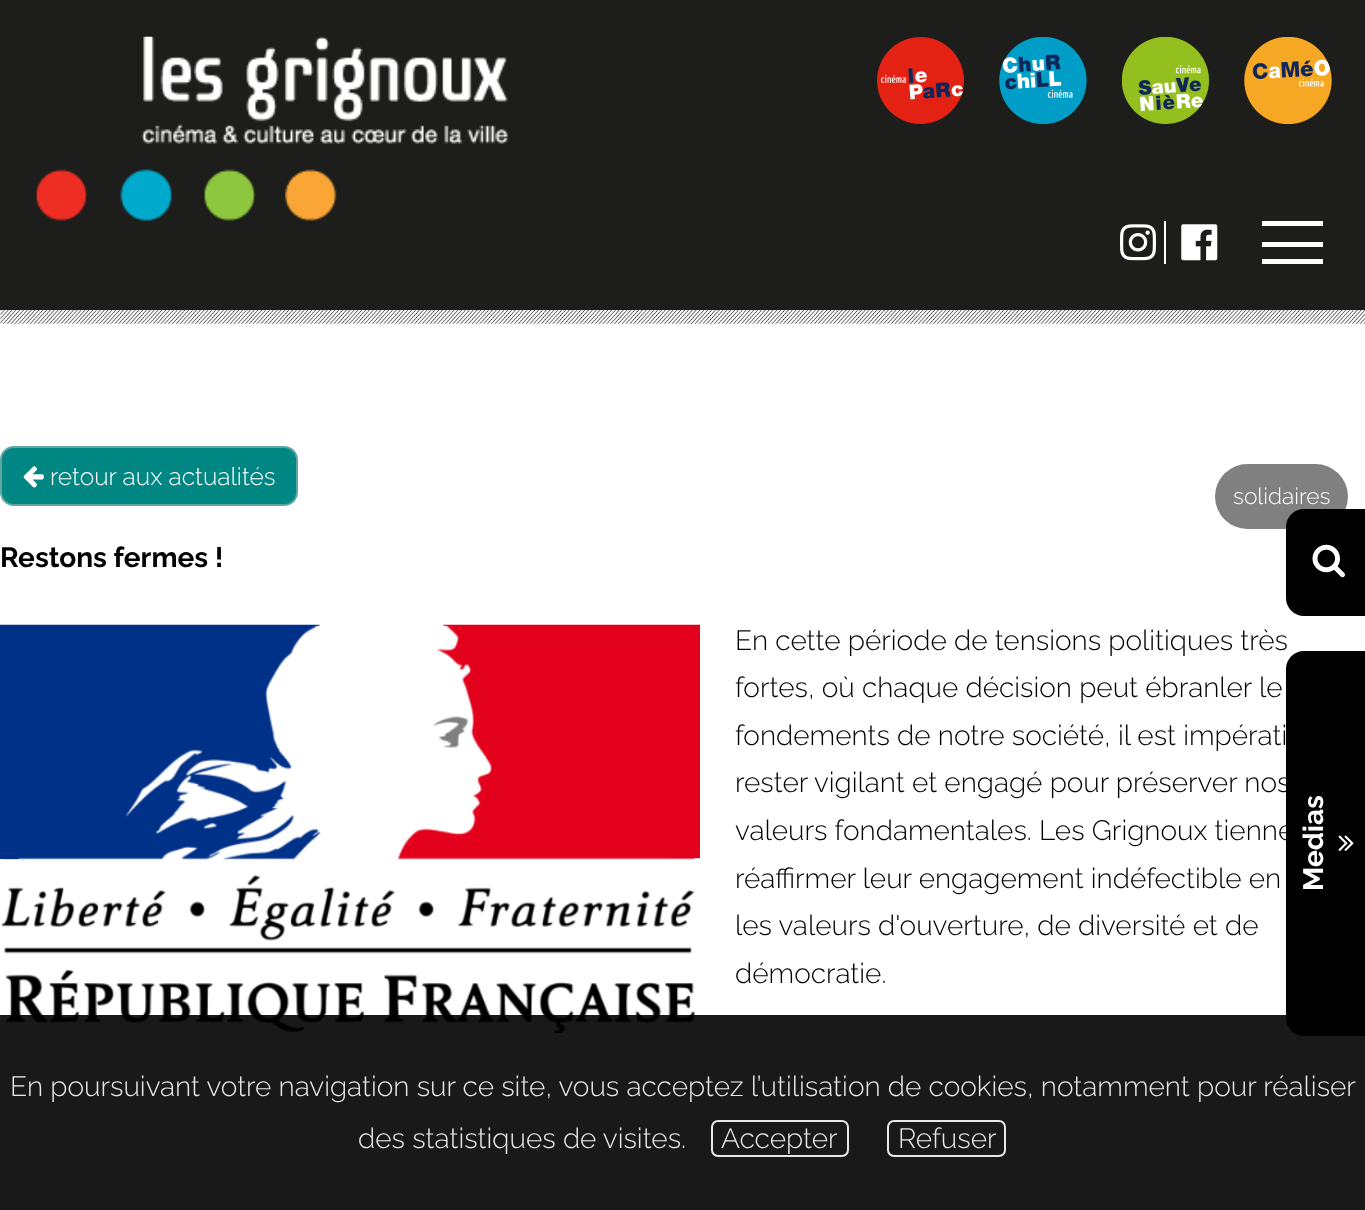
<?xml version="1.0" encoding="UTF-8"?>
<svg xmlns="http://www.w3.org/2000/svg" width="1365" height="1210">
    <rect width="100%" height="100%" fill="#FFFFFF"/>
    <rect x="0" y="0" width="1365" height="310" fill="#1D1D1B"/>
    <image x="36" y="36" width="472" height="185" href="img_01.png"/>
    <image x="877" y="37" width="87" height="87" href="img_02.png"/>
    <image x="999" y="37" width="88" height="87" href="img_03.png"/>
    <image x="1122" y="37" width="87" height="87" href="img_04.png"/>
    <image x="1244" y="37" width="88" height="87" href="img_05.png"/>
    <rect x="1164" y="221" width="2" height="43" fill="#FFFFFF"/>
    <image x="1120" y="224" width="36" height="37" href="img_06.png"/>
    <image x="1181" y="224" width="37" height="37" href="img_07.png"/>
    <rect x="1262" y="221" width="61" height="5" fill="#FFFFFF"/>
    <rect x="1262" y="242" width="61" height="5" fill="#FFFFFF"/>
    <rect x="1262" y="259" width="61" height="5" fill="#FFFFFF"/>
    <image x="0" y="310" width="1365" height="14" href="img_08.png"/>
    <rect x="1" y="447" width="296" height="58" rx="13" fill="#008683" stroke="#5EA5A3" stroke-width="2"/>
    <image x="23" y="466" width="21" height="22" href="img_09.png"/>
    <text x="50" y="485" font-family="Raleway" font-size="24.5" font-weight="300" fill="#FFFFFF">retour aux actualités</text>
    <rect x="1215" y="464" width="133" height="65" rx="32.5" fill="#808080"/>
    <text x="1233" y="504" font-family="Raleway" font-size="22.75" font-weight="300" fill="#FFFFFF">solidaires</text>
    <text x="0" y="567" font-family="Raleway" font-size="28" font-weight="700" fill="#000000">Restons fermes !</text>
    <image x="0" y="624" width="700" height="410" href="img_10.png"/>
    <text font-family="Raleway" font-size="28" font-weight="300" fill="#000000">
        <tspan x="735" y="650">En cette période de tensions politiques très</tspan>
        <tspan x="735" y="697">fortes, où chaque décision peut ébranler le</tspan>
        <tspan x="735" y="745">fondements de notre société, il est impérati</tspan>
        <tspan x="735" y="792">rester vigilant et engagé pour préserver nos</tspan>
        <tspan x="735" y="840">valeurs fondamentales. Les Grignoux tienne</tspan>
        <tspan x="735" y="888">réaffirmer leur engagement indéfectible en</tspan>
        <tspan x="735" y="935">les valeurs d'ouverture, de diversité et de</tspan>
        <tspan x="735" y="983">démocratie.</tspan>
    </text>
    <path d="M 1304 509 H 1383 V 616 H 1304 C 1294 616 1286 608 1286 598 V 527 C 1286 517 1294 509 1304 509 Z" fill="#000000"/>
    <image x="1312" y="544" width="33" height="34" href="img_11.png"/>
    <path d="M 1304 651 H 1365 V 1036 H 1304 C 1294 1036 1286 1028 1286 1018 V 669 C 1286 659 1294 651 1304 651 Z" fill="#000000"/>
    <text x="1323" y="891" transform="rotate(-90 1323 891)" font-family="Raleway" font-size="28" font-weight="700" fill="#FFFFFF">Medias</text>
    <image x="1338" y="835" width="16" height="16" href="img_12.png"/>
    <rect x="0" y="1015" width="1365" height="195" fill="#000000" fill-opacity="0.9"/>
    <text x="10" y="1096" font-family="Raleway" font-size="28" font-weight="300" fill="#E8E8E8">En poursuivant votre navigation sur ce site, vous acceptez l’utilisation de cookies, notamment pour réaliser</text>
    <text x="358" y="1148" font-family="Raleway" font-size="28" font-weight="300" fill="#E8E8E8">des statistiques de visites.</text>
    <rect x="712" y="1121" width="136" height="35" rx="6" fill="none" stroke="#FFFFFF" stroke-opacity="0.9" stroke-width="2"/>
    <text x="721" y="1148" font-family="Raleway" font-size="28" font-weight="300" fill="#E8E8E8">Accepter</text>
    <rect x="888" y="1121" width="117" height="35" rx="6" fill="none" stroke="#FFFFFF" stroke-opacity="0.9" stroke-width="2"/>
    <text x="898" y="1148" font-family="Raleway" font-size="28" font-weight="300" fill="#E8E8E8">Refuser</text>
</svg>
